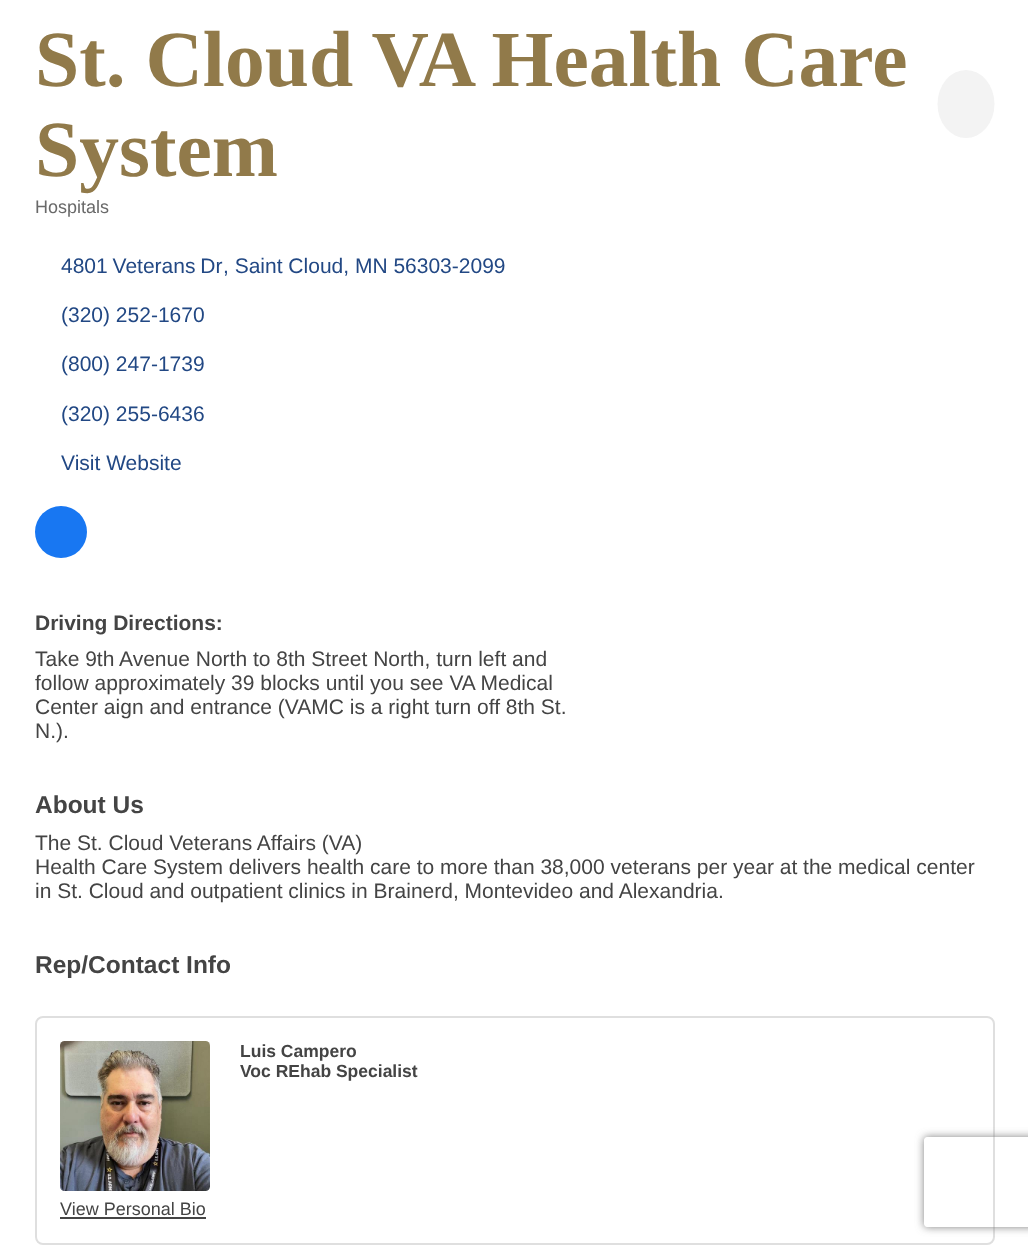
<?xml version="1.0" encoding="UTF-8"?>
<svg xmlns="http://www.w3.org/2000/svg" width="1028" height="1248">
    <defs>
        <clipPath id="clip1"><path d="M 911 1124 H 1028 V 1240 H 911 Z M 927 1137 H 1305 C 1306.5 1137 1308 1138.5 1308 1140 V 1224 C 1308 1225.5 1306.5 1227 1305 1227 H 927 C 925.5 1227 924 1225.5 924 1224 V 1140 C 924 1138.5 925.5 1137 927 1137 Z" clip-rule="evenodd"/></clipPath>
        <filter id="blur1" x="-50%" y="-200%" width="200%" height="500%"><feGaussianBlur stdDeviation="4"/></filter>
    </defs>
    <rect width="100%" height="100%" fill="#FFFFFF"/>
    <text font-family="Liberation Serif" font-size="79.5" font-weight="700" fill="#917A4A">
        <tspan x="35" y="86">St. Cloud VA Health Care</tspan>
        <tspan x="35" y="176">System</tspan>
    </text>
    <ellipse cx="966" cy="104" rx="28.5" ry="34" fill="#F3F3F3"/>
    <text x="35" y="213" font-family="Liberation Sans" font-size="18" fill="#696969">Hospitals</text>
    <text x="61" y="273" word-spacing="-1" font-family="Liberation Sans" font-size="21" fill="#224884">4801 Veterans Dr</text>
    <text x="223" y="273" font-family="Liberation Sans" font-size="21" fill="#224884">, Saint Cloud, MN 56303-2099</text>
    <text x="61" y="322" font-family="Liberation Sans" font-size="21" fill="#224884">(320) 252-1670</text>
    <text x="61" y="371" font-family="Liberation Sans" font-size="21" fill="#224884">(800) 247-1739</text>
    <text x="61" y="421" font-family="Liberation Sans" font-size="21" fill="#224884">(320) 255-6436</text>
    <text x="61" y="470" font-family="Liberation Sans" font-size="21" fill="#224884">Visit Website</text>
    <circle cx="61" cy="532" r="26" fill="#1877F2"/>
    <text x="35" y="630" font-family="Liberation Sans" font-size="21" font-weight="700" fill="#444444">Driving Directions:</text>
    <text font-family="Liberation Sans" font-size="21" fill="#444444">
        <tspan x="35" y="666">Take 9th Avenue North to 8th Street North, turn left and</tspan>
        <tspan x="35" y="690">follow approximately 39 blocks until you see VA Medical</tspan>
        <tspan x="35" y="714">Center aign and entrance (VAMC is a right turn off 8th St.</tspan>
        <tspan x="35" y="738">N.).</tspan>
    </text>
    <text x="35" y="813" font-family="Liberation Sans" font-size="24.5" font-weight="700" fill="#444444">About Us</text>
    <text font-family="Liberation Sans" font-size="21" fill="#444444">
        <tspan x="35" y="850">The St. Cloud Veterans Affairs (VA)</tspan>
        <tspan x="35" y="874">Health Care System delivers health care to more than 38,000 veterans per year at the medical center</tspan>
        <tspan x="35" y="898">in St. Cloud and outpatient clinics in Brainerd, Montevideo and Alexandria.</tspan>
    </text>
    <text x="35" y="973" font-family="Liberation Sans" font-size="24.5" font-weight="700" fill="#444444">Rep/Contact Info</text>
    <rect x="36" y="1017" width="958" height="227" rx="7" fill="none" stroke="#DFDFDF" stroke-width="2"/>
    <text font-family="Liberation Sans" font-size="17.5" font-weight="700" fill="#444444">
        <tspan x="240" y="1057">Luis Campero</tspan>
        <tspan x="240" y="1077">Voc REhab Specialist</tspan>
    </text>
    <image x="60" y="1041" width="150" height="150" href="img_01.png"/>
    <text x="60" y="1215" font-family="Liberation Sans" font-size="18" fill="#444444">View Personal Bio</text>
    <rect x="60" y="1217" width="146" height="2" fill="#444444"/>
    <g clip-path="url(#clip1)">
        <rect x="924" y="1137" width="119" height="90" rx="3" fill="#808080" filter="url(#blur1)"/>
    </g>
</svg>
